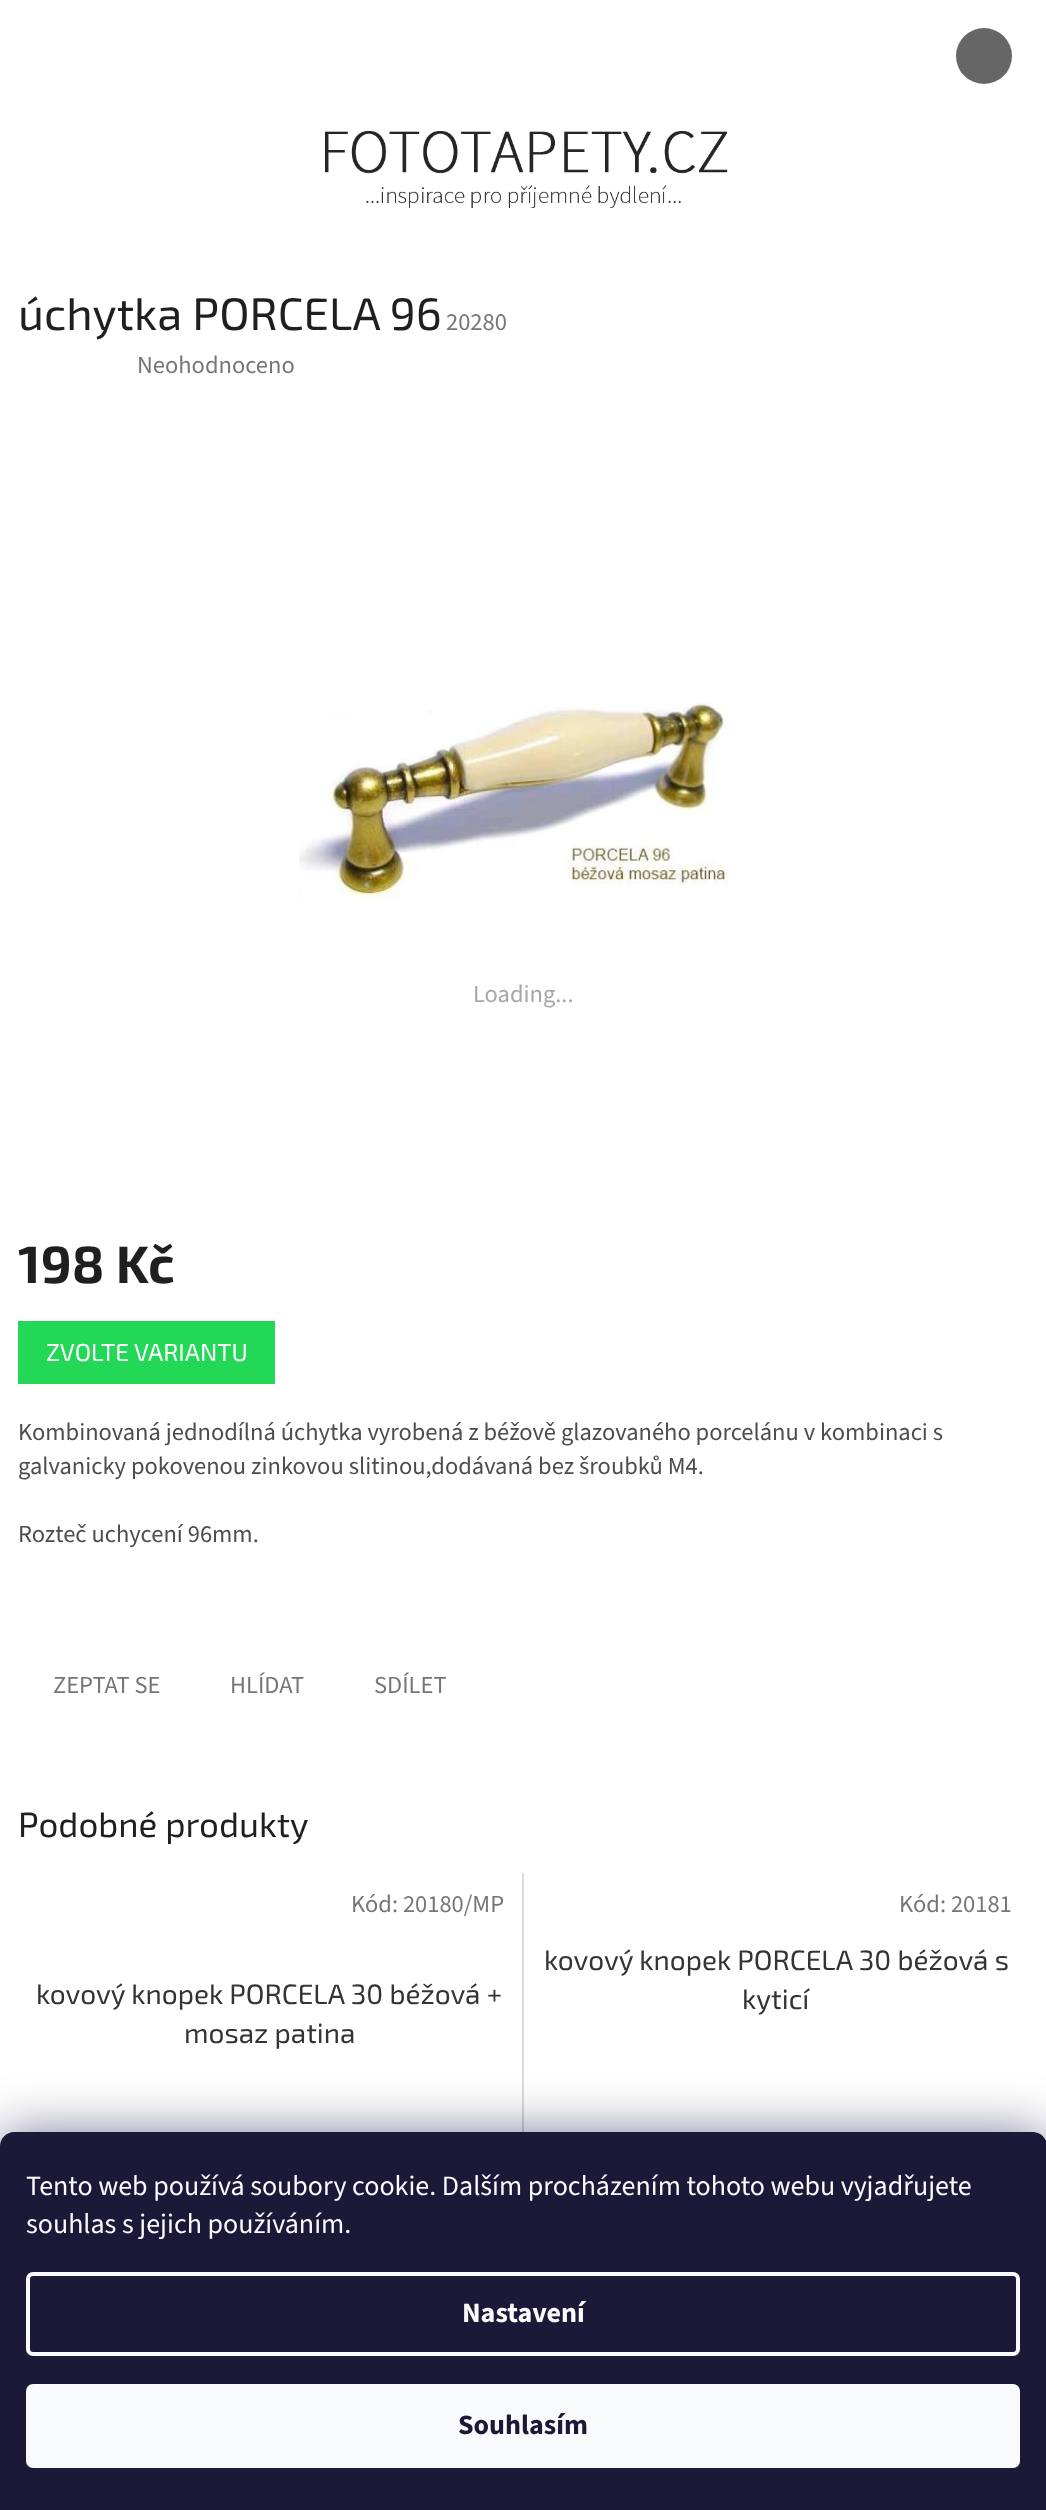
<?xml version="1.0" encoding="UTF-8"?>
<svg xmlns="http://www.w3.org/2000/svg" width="1046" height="2510">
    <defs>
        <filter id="blur1" x="-50%" y="-200%" width="200%" height="500%"><feGaussianBlur stdDeviation="26"/></filter>
    </defs>
    <rect width="100%" height="100%" fill="#FFFFFF"/>
    <circle cx="984" cy="56" r="28" fill="#666666"/>
    <image x="325" y="131" width="403" height="77" href="img_01.png"/>
    <text x="18" y="330" font-family="'Exo 2'" font-size="45.5" fill="#1F1F1F">úchytka PORCELA 96</text>
    <text x="446" y="330" font-family="'Source Sans 3'" font-size="24.5" fill="#767676">20280</text>
    <text x="137" y="373" font-family="'Source Sans 3'" font-size="24.5" fill="#767676">Neohodnoceno</text>
    <image x="299" y="702" width="430" height="198" href="img_02.png"/>
    <text x="473" y="1002" font-family="'Source Sans 3'" font-size="24.5" fill="#A6A6A6">Loading...</text>
    <text x="18" y="1283" font-family="'Exo 2'" font-size="52.5" font-weight="700" fill="#1F1F1F">198 Kč</text>
    <rect x="18" y="1321" width="257" height="63" fill="#23D757"/>
    <text x="46" y="1361" font-family="'Exo 2'" font-size="24.5" fill="#FFFFFF">ZVOLTE VARIANTU</text>
    <text font-family="'Source Sans 3'" font-size="24.5" fill="#4D4D4D">
        <tspan x="18" y="1440">Kombinovaná jednodílná úchytka vyrobená z béžově glazovaného porcelánu v kombinaci s</tspan>
        <tspan x="18" y="1474">galvanicky pokovenou zinkovou slitinou,dodávaná bez šroubků M4.</tspan>
    </text>
    <text x="18" y="1542" font-family="'Source Sans 3'" font-size="24.5" fill="#4D4D4D">Rozteč uchycení 96mm.</text>
    <text x="53" y="1693" font-family="'Source Sans 3'" font-size="24.5" fill="#767676">ZEPTAT SE</text>
    <text x="230" y="1693" font-family="'Source Sans 3'" font-size="24.5" fill="#767676">HLÍDAT</text>
    <text x="374" y="1693" font-family="'Source Sans 3'" font-size="24.5" fill="#767676">SDÍLET</text>
    <text x="18" y="1837" font-family="'Exo 2'" font-size="35" fill="#1F1F1F">Podobné produkty</text>
    <rect x="522" y="1873" width="2" height="259" fill="#DADADA"/>
    <text x="351" y="1912" font-family="'Source Sans 3'" font-size="24.5" fill="#767676">Kód: 20180/MP</text>
    <text x="36" y="2004" font-family="'Exo 2'" font-size="28" fill="#343434">kovový knopek PORCELA 30 béžová +</text>
    <text x="184" y="2043" font-family="'Exo 2'" font-size="28" fill="#343434">mosaz patina</text>
    <text x="899" y="1912" font-family="'Source Sans 3'" font-size="24.5" fill="#767676">Kód: 20181</text>
    <text x="544" y="1970" font-family="'Exo 2'" font-size="28" fill="#343434">kovový knopek PORCELA 30 béžová s</text>
    <text x="742" y="2009" font-family="'Exo 2'" font-size="28" fill="#343434">kyticí</text>
    <rect x="0" y="2132" width="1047" height="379" rx="14" fill="#1B1939" fill-opacity="0.5" filter="url(#blur1)"/>
    <path d="M 14 2132 H 1033 C 1040.5 2132 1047 2138.5 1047 2146 V 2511 H 0 V 2146 C 0 2138.5 6.5 2132 14 2132 Z" fill="#1A1937"/>
    <text font-family="'Source Sans 3'" font-size="28" fill="#F8FAFB">
        <tspan x="26" y="2195">Tento web používá soubory cookie. Dalším procházením tohoto webu vyjadřujete</tspan>
        <tspan x="26" y="2233">souhlas s jejich používáním.</tspan>
    </text>
    <rect x="28" y="2274" width="990" height="80" rx="5" fill="none" stroke="#F8FAFB" stroke-width="4"/>
    <text x="462" y="2322" font-family="'Source Sans 3'" font-size="28" font-weight="700" fill="#F8FAFB">Nastavení</text>
    <rect x="26" y="2384" width="994" height="84" rx="7" fill="#F8FAFB"/>
    <text x="458" y="2434" font-family="'Source Sans 3'" font-size="28" font-weight="700" fill="#1A1937">Souhlasím</text>
</svg>
